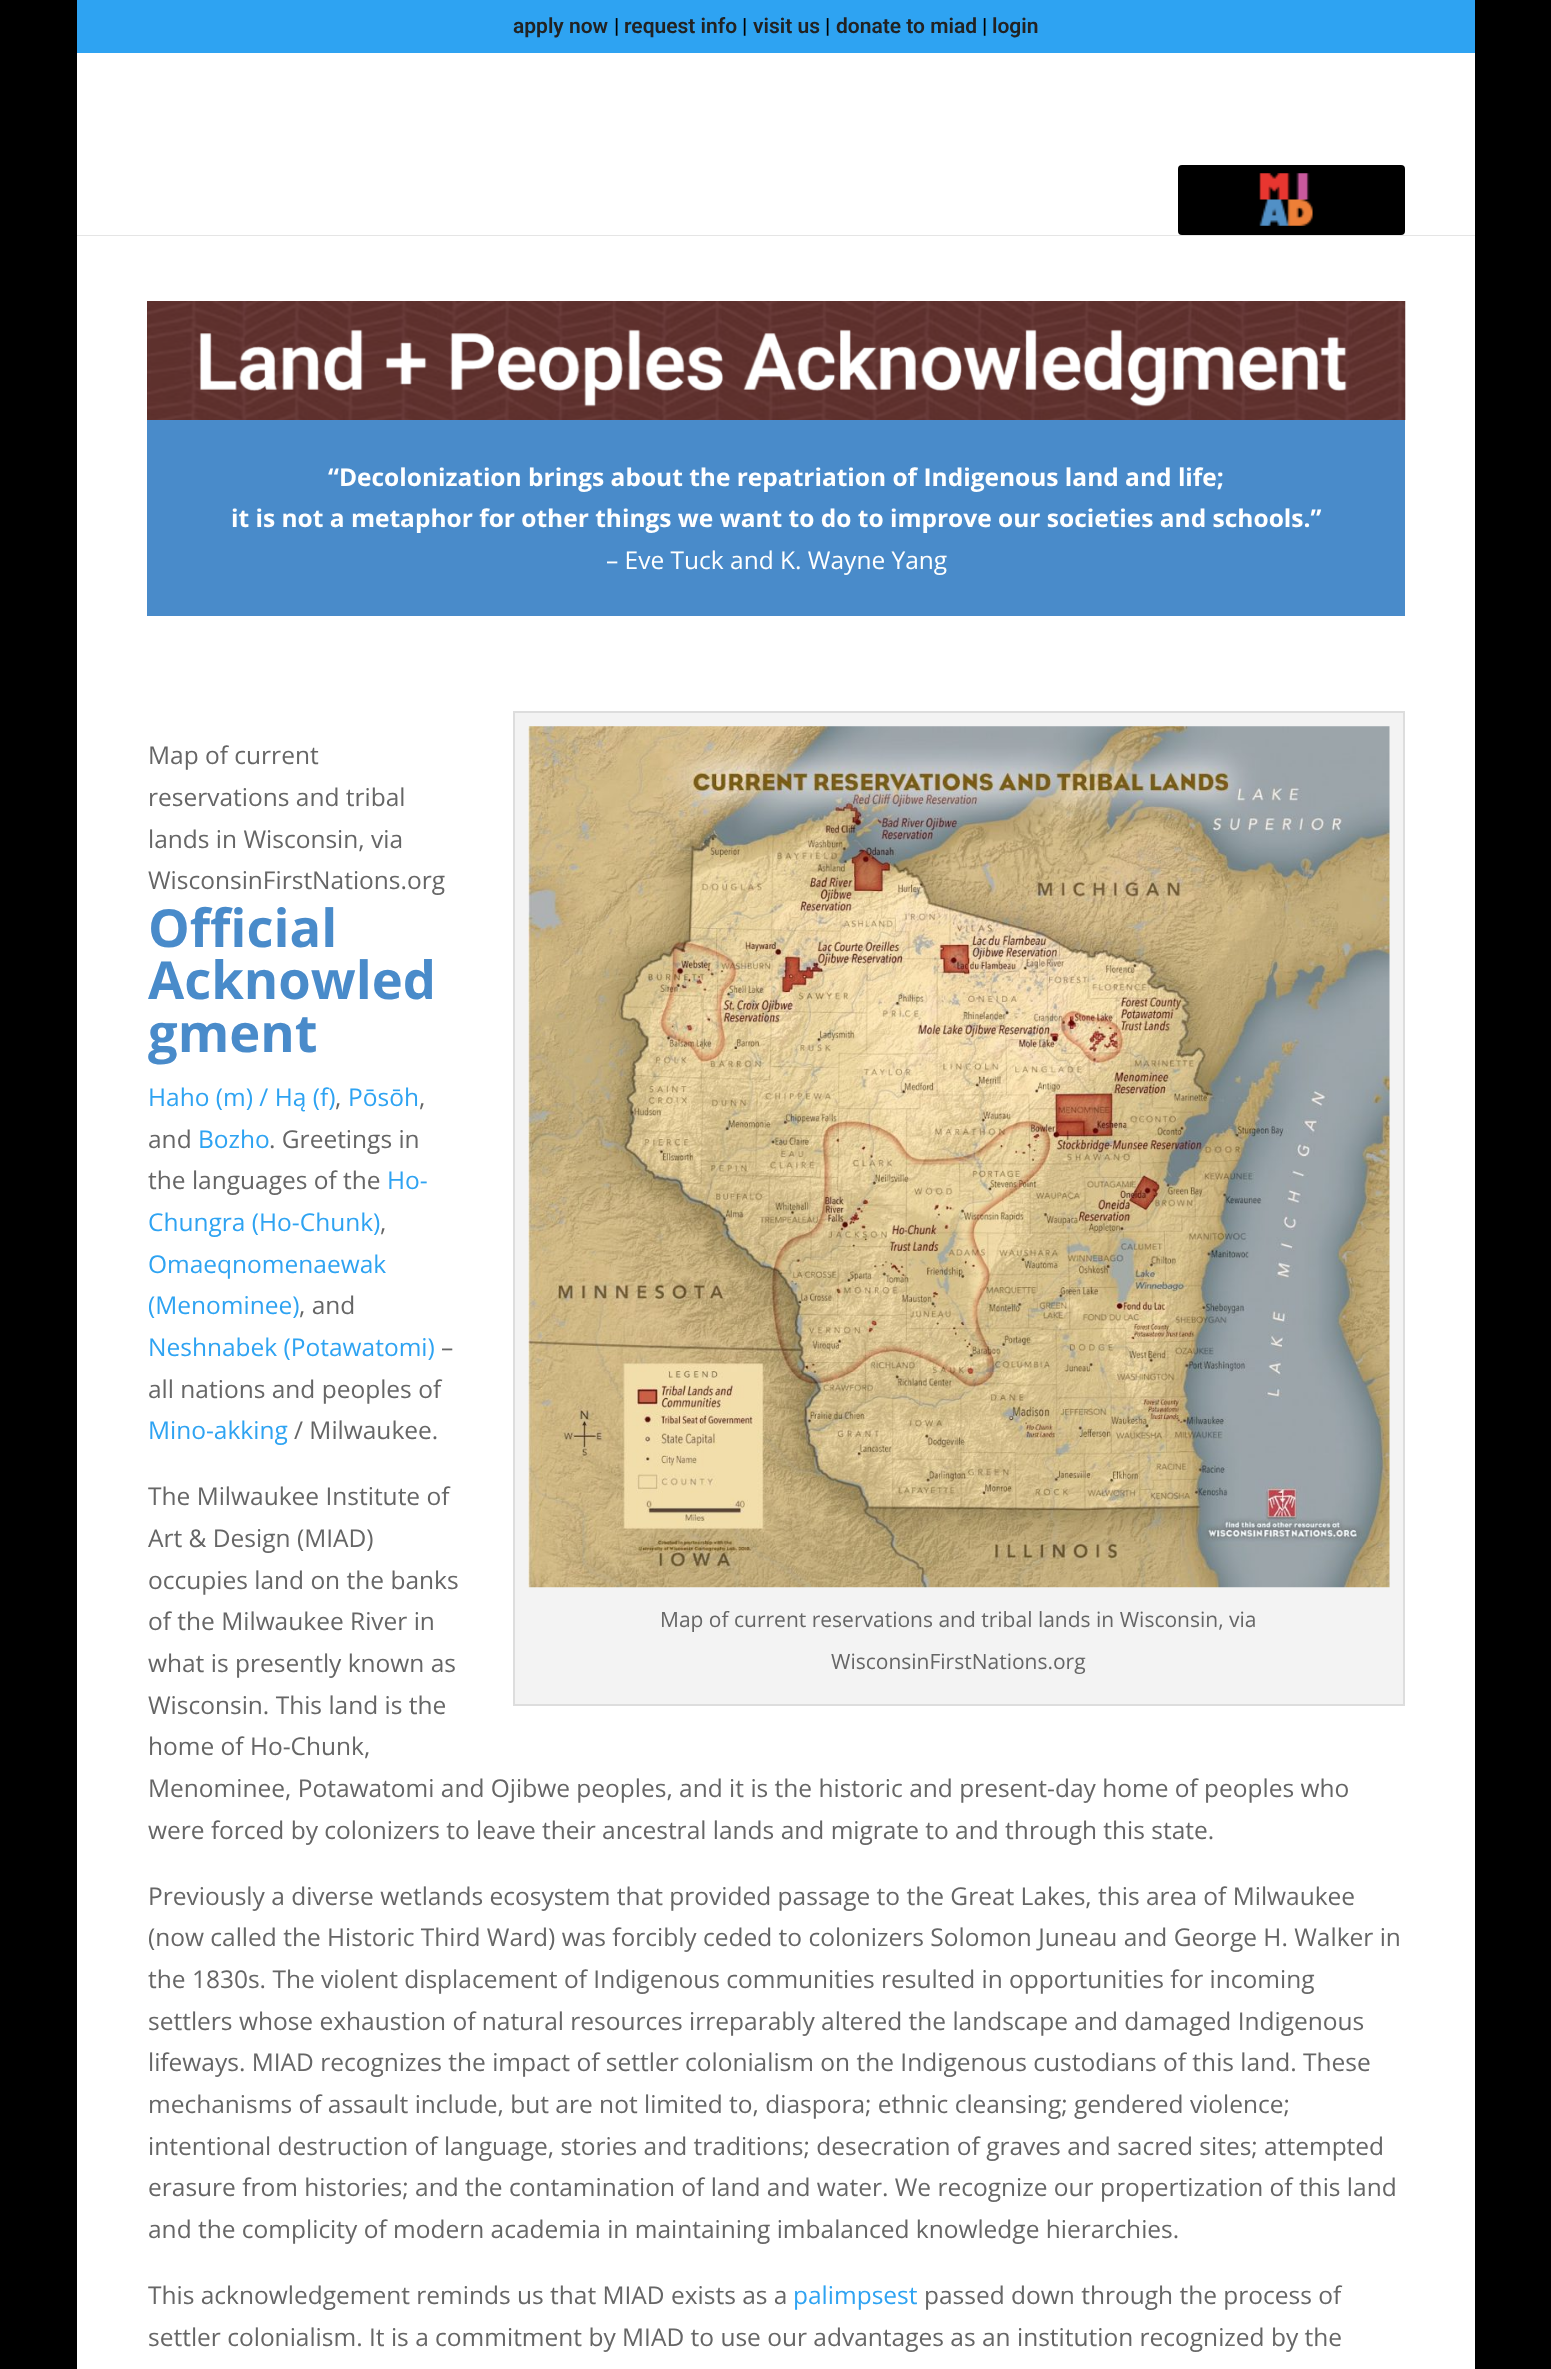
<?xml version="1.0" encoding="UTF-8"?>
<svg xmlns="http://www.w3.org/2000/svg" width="1551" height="2369">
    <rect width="100%" height="100%" fill="#000000"/>
    <rect x="77" y="0" width="1398" height="53" fill="#2EA3F2"/>
    <text x="513" y="33" font-family="Roboto" font-size="21" font-weight="600" fill="#222222">apply now</text>
    <text x="614" y="33" font-family="Roboto" font-size="21" font-weight="600" fill="#000000">|</text>
    <text x="624" y="33" font-family="Roboto" font-size="21" font-weight="600" fill="#222222">request info</text>
    <text x="742" y="33" font-family="Roboto" font-size="21" font-weight="600" fill="#000000">|</text>
    <text x="753" y="33" font-family="Roboto" font-size="21" font-weight="600" fill="#222222">visit us</text>
    <text x="825" y="33" font-family="Roboto" font-size="21" font-weight="600" fill="#000000">|</text>
    <text x="836" y="33" font-family="Roboto" font-size="21" font-weight="600" fill="#222222">donate to miad</text>
    <text x="982" y="33" font-family="Roboto" font-size="21" font-weight="600" fill="#000000">|</text>
    <text x="992" y="33" font-family="Roboto" font-size="21" font-weight="600" fill="#222222">login</text>
    <rect x="77" y="53" width="1398" height="2316" fill="#FFFFFF"/>
    <rect x="77" y="235" width="1398" height="1" fill="#000000" fill-opacity="0.1"/>
    <rect x="1178" y="165" width="227" height="70" rx="4" fill="#000000"/>
    <image x="1259" y="173" width="54" height="53" href="img_01.png"/>
    <image x="147" y="301" width="1259" height="119" href="img_02.png"/>
    <rect x="147" y="420" width="1258" height="196" fill="#498BCA"/>
    <text x="328" y="486" font-family="Open Sans" font-size="24.5" font-weight="700" fill="#FFFFFF">“Decolonization brings about the repatriation of Indigenous land and life;</text>
    <text x="231" y="527" font-family="Open Sans" font-size="24.5" font-weight="700" fill="#FFFFFF">it is not a metaphor for other things we want to do to improve our societies and schools.”</text>
    <text x="606" y="569" font-family="Open Sans" font-size="24.5" fill="#FFFFFF">– Eve Tuck and K. Wayne Yang</text>
    <text font-family="Open Sans" font-size="24.5" fill="#666666">
        <tspan x="148" y="764">Map of current</tspan>
        <tspan x="148" y="806">reservations and tribal</tspan>
        <tspan x="148" y="848">lands in Wisconsin, via</tspan>
        <tspan x="148" y="889">WisconsinFirstNations.org</tspan>
    </text>
    <text font-family="Open Sans" font-size="52.5" font-weight="700" fill="#498BCA">
        <tspan x="148" y="947">Official</tspan>
        <tspan x="148" y="999">Acknowled</tspan>
        <tspan x="148" y="1052">gment</tspan>
    </text>
    <rect x="514" y="712" width="890" height="993" fill="#F3F3F3" stroke="#DDDDDD" stroke-width="2"/>
    <image x="528" y="726" width="862" height="862" href="img_03.png"/>
    <text x="660" y="1627" font-family="Open Sans" font-size="21" fill="#666666">Map of current reservations and tribal lands in Wisconsin, via</text>
    <text x="831" y="1669" font-family="Open Sans" font-size="21" fill="#666666">WisconsinFirstNations.org</text>
    <text x="148" y="1106" font-family="Open Sans" font-size="24.5" fill="#2EA3F2">Haho (m) / Hą (f)</text>
    <text x="335" y="1106" font-family="Open Sans" font-size="24.5" fill="#666666">,</text>
    <text x="348" y="1106" font-family="Open Sans" font-size="24.5" fill="#2EA3F2">Pōsōh</text>
    <text x="419" y="1106" font-family="Open Sans" font-size="24.5" fill="#666666">,</text>
    <text x="148" y="1148" font-family="Open Sans" font-size="24.5" fill="#666666">and</text>
    <text x="198" y="1148" font-family="Open Sans" font-size="24.5" fill="#2EA3F2">Bozho</text>
    <text x="269" y="1148" font-family="Open Sans" font-size="24.5" fill="#666666">. Greetings in</text>
    <text x="148" y="1189" font-family="Open Sans" font-size="24.5" fill="#666666">the languages of the</text>
    <text x="387" y="1189" font-family="Open Sans" font-size="24.5" fill="#2EA3F2">Ho-</text>
    <text x="148" y="1231" font-family="Open Sans" font-size="24.5" fill="#2EA3F2">Chungra (Ho-Chunk)</text>
    <text x="380" y="1231" font-family="Open Sans" font-size="24.5" fill="#666666">,</text>
    <text font-family="Open Sans" font-size="24.5" fill="#2EA3F2">
        <tspan x="148" y="1273">Omaeqnomenaewak</tspan>
        <tspan x="148" y="1314">(Menominee)</tspan>
    </text>
    <text x="299" y="1314" font-family="Open Sans" font-size="24.5" fill="#666666">, and</text>
    <text x="148" y="1356" font-family="Open Sans" font-size="24.5" fill="#2EA3F2">Neshnabek (Potawatomi)</text>
    <text x="441" y="1356" font-family="Open Sans" font-size="24.5" fill="#666666">–</text>
    <text x="148" y="1398" font-family="Open Sans" font-size="24.5" fill="#666666">all nations and peoples of</text>
    <text x="148" y="1439" font-family="Open Sans" font-size="24.5" fill="#2EA3F2">Mino-akking</text>
    <text x="294" y="1439" font-family="Open Sans" font-size="24.5" fill="#666666">/ Milwaukee.</text>
    <text font-family="Open Sans" font-size="24.5" fill="#666666">
        <tspan x="148" y="1505">The Milwaukee Institute of</tspan>
        <tspan x="148" y="1547">Art &amp; Design (MIAD)</tspan>
        <tspan x="148" y="1589">occupies land on the banks</tspan>
        <tspan x="148" y="1630">of the Milwaukee River in</tspan>
        <tspan x="148" y="1672">what is presently known as</tspan>
        <tspan x="148" y="1714">Wisconsin. This land is the</tspan>
        <tspan x="148" y="1755">home of Ho-Chunk,</tspan>
        <tspan x="148" y="1797">Menominee, Potawatomi and Ojibwe peoples, and it is the historic and present-day home of peoples who</tspan>
        <tspan x="148" y="1839">were forced by colonizers to leave their ancestral lands and migrate to and through this state.</tspan>
    </text>
    <text font-family="Open Sans" font-size="24.5" fill="#666666">
        <tspan x="148" y="1905">Previously a diverse wetlands ecosystem that provided passage to the Great Lakes, this area of Milwaukee</tspan>
        <tspan x="148" y="1946">(now called the Historic Third Ward) was forcibly ceded to colonizers Solomon Juneau and George H. Walker in</tspan>
        <tspan x="148" y="1988">the 1830s. The violent displacement of Indigenous communities resulted in opportunities for incoming</tspan>
        <tspan x="148" y="2030">settlers whose exhaustion of natural resources irreparably altered the landscape and damaged Indigenous</tspan>
        <tspan x="148" y="2071">lifeways. MIAD recognizes the impact of settler colonialism on the Indigenous custodians of this land. These</tspan>
        <tspan x="148" y="2113">mechanisms of assault include, but are not limited to, diaspora; ethnic cleansing; gendered violence;</tspan>
        <tspan x="148" y="2155">intentional destruction of language, stories and traditions; desecration of graves and sacred sites; attempted</tspan>
        <tspan x="148" y="2196">erasure from histories; and the contamination of land and water. We recognize our propertization of this land</tspan>
        <tspan x="148" y="2238">and the complicity of modern academia in maintaining imbalanced knowledge hierarchies.</tspan>
    </text>
    <text x="148" y="2304" font-family="Open Sans" font-size="24.5" fill="#666666">This acknowledgement reminds us that MIAD exists as a</text>
    <text x="793" y="2304" font-family="Open Sans" font-size="24.5" fill="#2EA3F2">palimpsest</text>
    <text x="924" y="2304" font-family="Open Sans" font-size="24.5" fill="#666666">passed down through the process of</text>
    <text x="148" y="2346" font-family="Open Sans" font-size="24.5" fill="#666666">settler colonialism. It is a commitment by MIAD to use our advantages as an institution recognized by the</text>
</svg>
